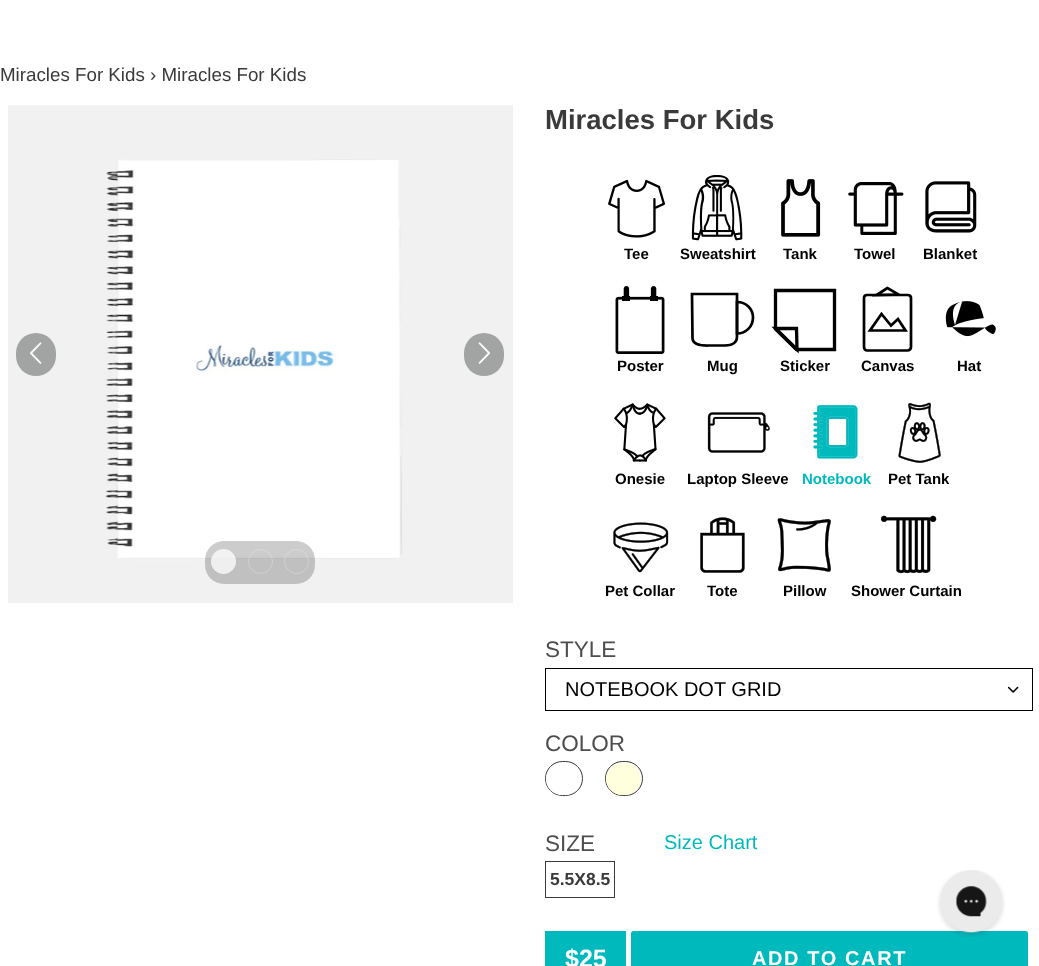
<?xml version="1.0" encoding="UTF-8"?>
<svg xmlns="http://www.w3.org/2000/svg" width="1039" height="966">
    <rect width="100%" height="100%" fill="#FFFFFF"/>
    <text x="0" y="81" font-family="Liberation Sans" font-size="18.75" fill="#3A3A3A">Miracles For Kids › Miracles For Kids</text>
    <image x="8" y="105" width="505" height="498" href="img_01.png"/>
    <rect x="205" y="541" width="110" height="43" rx="19" fill="#000000" fill-opacity="0.2"/>
    <circle cx="223.5" cy="561.5" r="12.5" fill="#FFFFFF" fill-opacity="0.75"/>
    <circle cx="260.5" cy="561.5" r="12" fill="none" stroke="#FFFFFF" stroke-opacity="0.25"/>
    <circle cx="296.5" cy="561.5" r="12" fill="none" stroke="#FFFFFF" stroke-opacity="0.25"/>
    <rect x="16" y="333" width="40" height="43" rx="20" fill="#A2A3A3"/>
    <image x="30" y="342" width="12" height="22" href="img_02.png"/>
    <rect x="464" y="333" width="40" height="43" rx="20" fill="#A2A3A3"/>
    <image x="478" y="342" width="13" height="22" href="img_03.png"/>
    <text x="545" y="129" font-family="Liberation Sans" font-size="27.5" font-weight="700" fill="#3A3A3A">Miracles For Kids</text>
    <image x="608" y="179" width="57" height="59" href="img_04.png"/>
    <text x="624" y="259" font-family="Liberation Sans" font-size="15" font-weight="700" fill="#000000">Tee</text>
    <image x="691" y="175" width="52" height="66" href="img_05.png"/>
    <text x="680" y="259" font-family="Liberation Sans" font-size="15" font-weight="700" fill="#000000">Sweatshirt</text>
    <image x="781" y="179" width="40" height="58" href="img_06.png"/>
    <text x="783" y="259" font-family="Liberation Sans" font-size="15" font-weight="700" fill="#000000">Tank</text>
    <image x="848" y="182" width="56" height="53" href="img_07.png"/>
    <text x="854" y="259" font-family="Liberation Sans" font-size="15" font-weight="700" fill="#000000">Towel</text>
    <image x="925" y="181" width="52" height="52" href="img_08.png"/>
    <text x="923" y="259" font-family="Liberation Sans" font-size="15" font-weight="700" fill="#000000">Blanket</text>
    <image x="615" y="286" width="50" height="68" href="img_09.png"/>
    <text x="617" y="371" font-family="Liberation Sans" font-size="15" font-weight="700" fill="#000000">Poster</text>
    <path d="M 737 301.5 V 294 H 692 L 692.5 338.5 C 693 346.5 705 345.5 710 345.5 H 719 C 726 345.5 737 346.5 737 336.5 Z" fill="none" stroke="#000000" stroke-width="2.7"/>
    <path d="M 753 317.5 C 753 309 746 302 737 302 V 333.5 C 746 333.5 753 326.5 753 317.5 Z" fill="none" stroke="#000000" stroke-width="2.7"/>
    <text x="707" y="371" font-family="Liberation Sans" font-size="15" font-weight="700" fill="#000000">Mug</text>
    <path d="M 775.5 290.5 V 329 L 796.5 349.5 H 834.5 V 290.5 Z" fill="none" stroke="#000000" stroke-width="3.3"/>
    <path d="M 797 349.5 L 775.5 328.5 H 796.5 Z" fill="none" stroke="#000000" stroke-width="3.3"/>
    <text x="780" y="371" font-family="Liberation Sans" font-size="15" font-weight="700" fill="#000000">Sticker</text>
    <path d="M 870 330.5 H 905.5 L 898 319 L 891 325.5 L 881.5 314 Z M 907.5 295 H 867 C 865.5 295 864 296 864 298 V 347 C 864 349 865.5 350.5 867 350.5 H 907.5 C 909.5 350.5 911 349 911 347 V 298 C 911 296 909.5 295 907.5 295 Z" fill="none" stroke="#000000" stroke-width="2.7"/>
    <path d="M 887.5 288 L 876.5 295 L 898.5 294.5 Z" fill="none" stroke="#000000" stroke-width="2.7"/>
    <text x="861" y="371" font-family="Liberation Sans" font-size="15" font-weight="700" fill="#000000">Canvas</text>
    <image x="945" y="301" width="51" height="36" href="img_10.png"/>
    <text x="957" y="371" font-family="Liberation Sans" font-size="15" font-weight="700" fill="#000000">Hat</text>
    <image x="614" y="403" width="52" height="59" href="img_11.png"/>
    <text x="615" y="484" font-family="Liberation Sans" font-size="15" font-weight="700" fill="#000000">Onesie</text>
    <image x="707" y="412" width="63" height="41" href="img_12.png"/>
    <text x="687" y="484" font-family="Liberation Sans" font-size="15" font-weight="700" fill="#000000">Laptop Sleeve</text>
    <image x="813" y="405" width="45" height="54" href="img_13.png"/>
    <text x="802" y="484" font-family="Liberation Sans" font-size="15" font-weight="700" fill="#00B9BD">Notebook</text>
    <image x="898" y="402" width="43" height="61" href="img_14.png"/>
    <text x="888" y="484" font-family="Liberation Sans" font-size="15" font-weight="700" fill="#000000">Pet Tank</text>
    <image x="613" y="522" width="56" height="51" href="img_15.png"/>
    <text x="605" y="596" font-family="Liberation Sans" font-size="15" font-weight="700" fill="#000000">Pet Collar</text>
    <image x="700" y="517" width="45" height="56" href="img_16.png"/>
    <text x="707" y="596" font-family="Liberation Sans" font-size="15" font-weight="700" fill="#000000">Tote</text>
    <image x="777" y="518" width="54" height="54" href="img_17.png"/>
    <text x="783" y="596" font-family="Liberation Sans" font-size="15" font-weight="700" fill="#000000">Pillow</text>
    <image x="880" y="515" width="57" height="59" href="img_18.png"/>
    <text x="851" y="596" font-family="Liberation Sans" font-size="15" font-weight="700" fill="#000000">Shower Curtain</text>
    <text x="545" y="657" font-family="Liberation Sans" font-size="22.5" fill="#4D4D4D">STYLE</text>
    <image x="1008" y="686" width="11" height="7" href="img_19.png"/>
    <rect x="545.5" y="668.5" width="487" height="42" fill="none" stroke="#000000"/>
    <text x="565" y="696" font-family="Liberation Sans" font-size="20" fill="#000000">NOTEBOOK DOT GRID</text>
    <text x="545" y="751" font-family="Liberation Sans" font-size="22.5" fill="#4D4D4D">COLOR</text>
    <rect x="545.5" y="761.5" width="37" height="34" rx="17" fill="none" stroke="#3A3A3A"/>
    <rect x="546" y="763" width="35" height="32" rx="16" fill="#FFFFFF"/>
    <rect x="605.5" y="761.5" width="37" height="34" rx="17" fill="none" stroke="#3A3A3A"/>
    <rect x="606" y="763" width="35" height="32" rx="16" fill="#FFFEDD"/>
    <text x="545" y="851" font-family="Liberation Sans" font-size="22.5" fill="#4D4D4D">SIZE</text>
    <text x="664" y="849" font-family="Liberation Sans" font-size="20" fill="#00B9BD">Size Chart</text>
    <rect x="545.5" y="861.5" width="69" height="36" fill="none" stroke="#3A3A3A"/>
    <text x="550" y="885" font-family="Liberation Sans" font-size="17.5" font-weight="700" fill="#3A3A3A">5.5X8.5</text>
    <rect x="545" y="931" width="81" height="35" fill="#00B9BD"/>
    <text x="565" y="967" font-family="Liberation Sans" font-size="25" font-weight="700" fill="#FFFFFF">$25</text>
    <rect x="631" y="931" width="397" height="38" rx="2.5" fill="#00B9BD"/>
    <text x="752" y="965" font-family="Liberation Sans" font-size="20" font-weight="700" letter-spacing="1.6" fill="#FFFFFF">ADD TO CART</text>
    <image x="937" y="870" width="68" height="67" href="img_20.png"/>
</svg>
